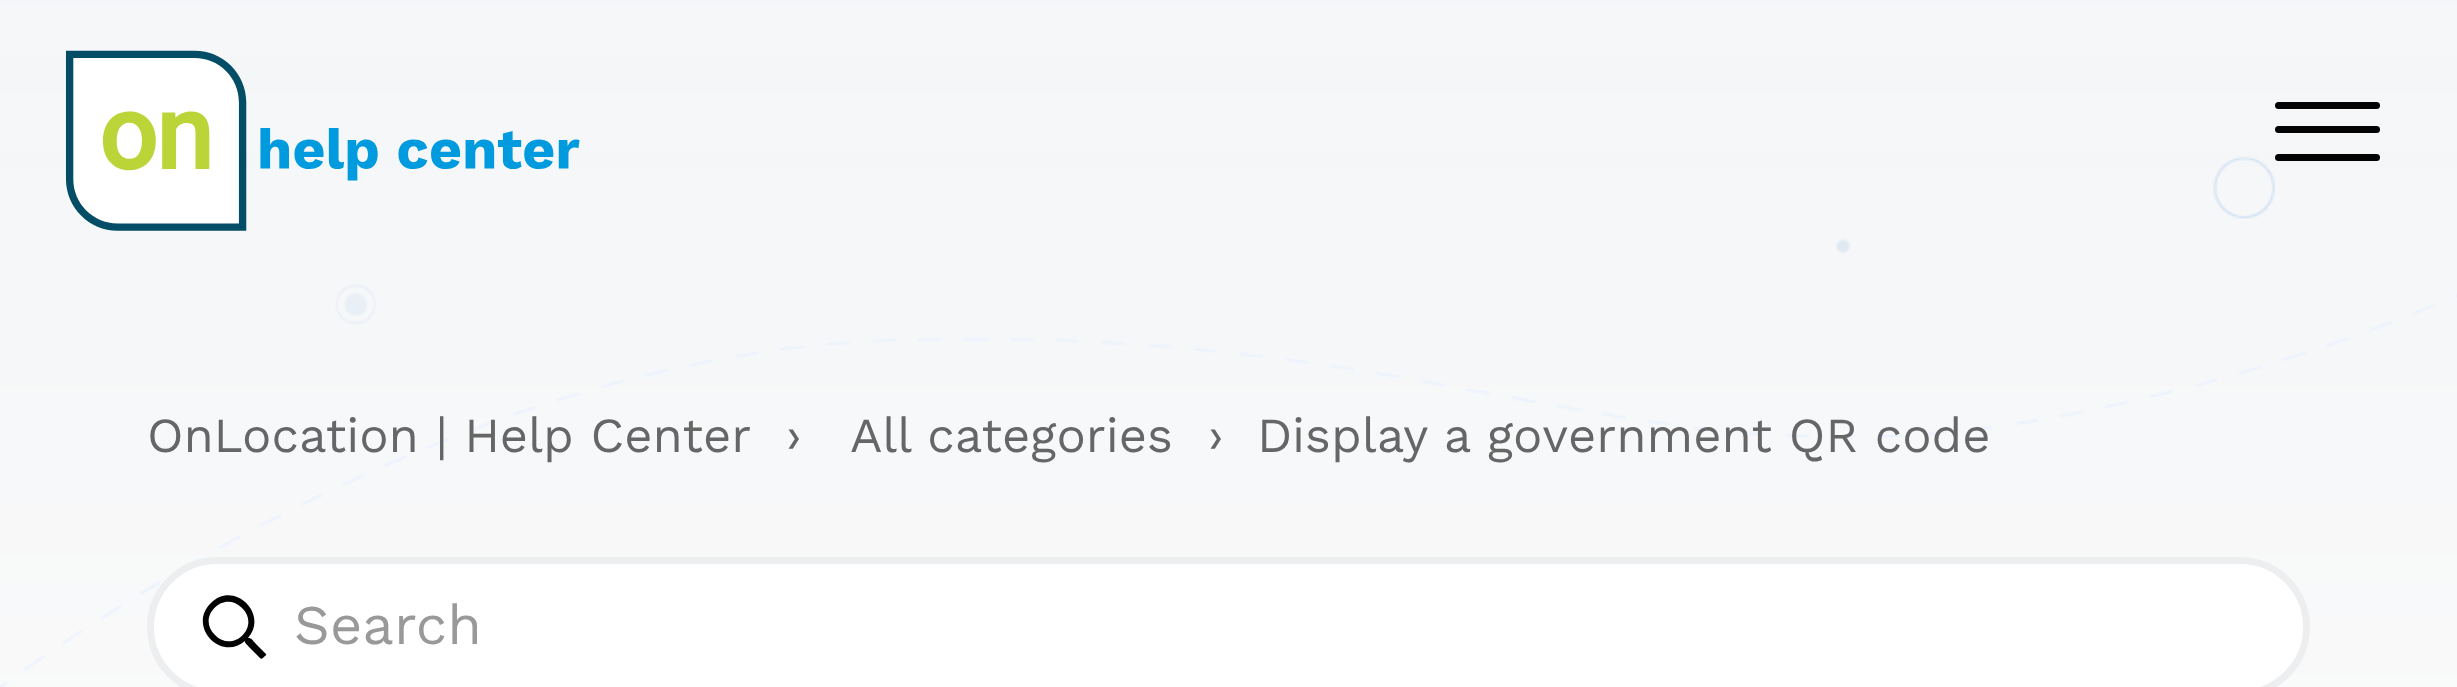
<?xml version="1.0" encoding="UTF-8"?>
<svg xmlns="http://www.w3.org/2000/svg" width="2457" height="687">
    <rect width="100%" height="100%" fill="#FFFFFF"/>
    <image x="0" y="0" width="2457" height="687" href="img_01.png"/>
    <image x="65" y="50" width="515" height="181" href="img_02.png"/>
    <rect x="2275" y="126" width="105" height="7" rx="3.5" fill="#030303"/>
    <rect x="2275" y="102" width="105" height="7" rx="3.5" fill="#030303"/>
    <rect x="2275" y="154" width="105" height="7" rx="3.5" fill="#030303"/>
    <text x="147" y="452" font-family="Work Sans" font-size="49" fill="#666666">OnLocation | Help Center</text>
    <text x="786" y="452" font-family="Work Sans" font-size="49" fill="#666666">›</text>
    <text x="850" y="452" font-family="Work Sans" font-size="49" fill="#666666">All categories</text>
    <text x="1208" y="452" font-family="Work Sans" font-size="49" fill="#666666">›</text>
    <text x="1257" y="452" font-family="Work Sans" font-size="49" fill="#666666">Display a government QR code</text>
    <rect x="150.5" y="560.5" width="2156" height="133" rx="66.5" fill="#FFFFFF" stroke="#ECEEEF" stroke-width="7"/>
    <path d="M 266 654 C 267 655 265 656 264 657 C 261 660 261 659 258 656 L 248 646 C 246 643 245 644 245 641 C 221 662 187 626 211 603 C 234 580 269 614 248 638 C 252 638 252 640 256 644 Z M 215 635 C 233 654 261 626 242 608 C 224 589 196 617 215 635 Z" fill="#030303"/>
    <text x="294" y="644" font-family="Work Sans" font-size="56" fill="#999999">Search</text>
</svg>
